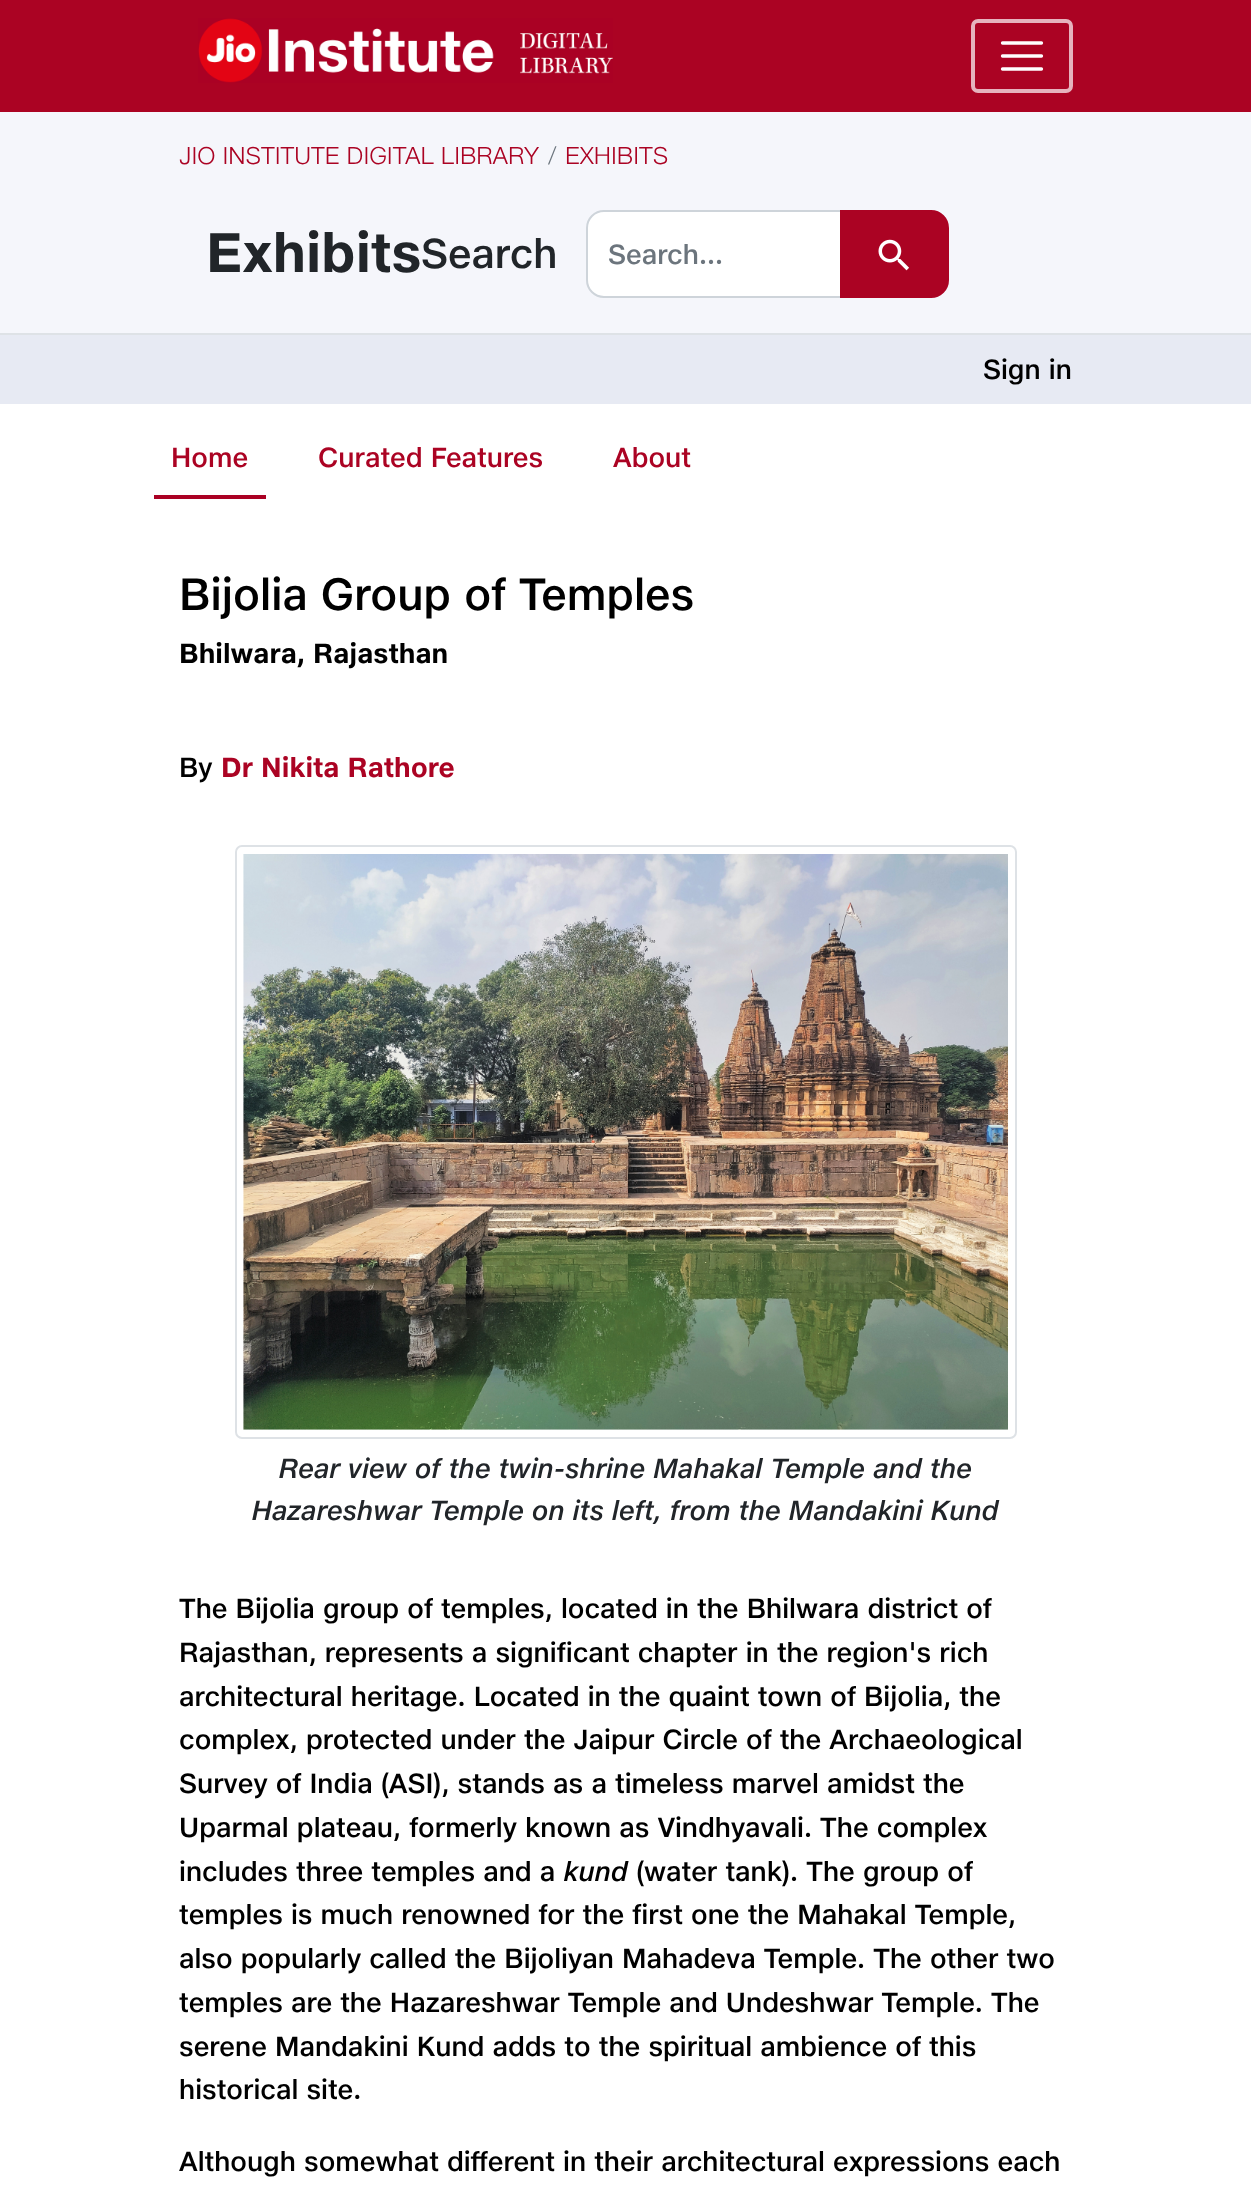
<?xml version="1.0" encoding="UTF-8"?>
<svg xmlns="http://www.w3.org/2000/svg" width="1251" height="2196">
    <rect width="100%" height="100%" fill="#FFFFFF"/>
    <rect x="0" y="0" width="1251" height="112" fill="#AB0323"/>
    <image x="198" y="18" width="415" height="65" href="img_01.png"/>
    <rect x="973" y="21" width="98" height="70" rx="5" fill="none" stroke="#E6B3BD" stroke-width="4"/>
    <path d="M 1002.5 43 H 1041.5 M 1002.5 56 H 1041.5 M 1002.5 69 H 1041.5" fill="none" stroke="#FFFFFF" stroke-width="3.3" stroke-linecap="round"/>
    <rect x="0" y="112" width="1251" height="221" fill="#F5F6FB"/>
    <rect x="0" y="333" width="1251" height="2" fill="#DEE2E6"/>
    <text x="179" y="164" font-family="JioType" font-size="24.5" font-weight="300" fill="#AB0323">JIO INSTITUTE DIGITAL LIBRARY</text>
    <text x="548" y="164" font-family="JioType" font-size="24.5" font-weight="300" fill="#6C757D">/</text>
    <text x="565" y="164" font-family="JioType" font-size="24.5" font-weight="300" fill="#AB0323">EXHIBITS</text>
    <text x="206" y="272" font-family="JioType" font-size="56" font-weight="700" fill="#212529">Exhibits</text>
    <text x="421" y="268" font-family="JioType" font-size="42" font-weight="500" fill="#212529">Search</text>
    <path d="M 604 211 H 841 V 297 H 604 C 594.5 297 587 289.5 587 280 V 228 C 587 218.5 594.5 211 604 211 Z" fill="#FFFFFF" stroke="#CED4DA" stroke-width="2"/>
    <text x="608" y="264" font-family="JioType" font-size="28" font-weight="500" fill="#6C757D">Search...</text>
    <path d="M 841 211 H 931 C 940.5 211 948 218.5 948 228 V 280 C 948 289.5 940.5 297 931 297 H 841 Z" fill="#AB0323" stroke="#AB0323" stroke-width="2"/>
    <image x="878" y="239" width="31" height="32" href="img_02.png"/>
    <rect x="0" y="335" width="1251" height="69" fill="#E7EAF3"/>
    <text x="983" y="379" font-family="JioType" font-size="28" font-weight="500" fill="#000000">Sign in</text>
    <rect x="154" y="495" width="112" height="4" fill="#AA0023"/>
    <text x="171" y="467" font-family="JioType" font-size="28" font-weight="500" fill="#AB0323">Home</text>
    <text x="318" y="467" font-family="JioType" font-size="28" font-weight="500" fill="#AB0323">Curated Features</text>
    <text x="613" y="467" font-family="JioType" font-size="28" font-weight="500" fill="#AB0323">About</text>
    <text x="179" y="610" font-family="JioType" font-size="45.5" font-weight="500" fill="#000000">Bijolia Group of Temples</text>
    <text x="179" y="663" font-family="JioType" font-size="28" font-weight="700" fill="#000000">Bhilwara, Rajasthan</text>
    <text x="179" y="777" font-family="JioType" font-size="28" font-weight="500" fill="#000000">By</text>
    <text x="221" y="777" font-family="JioType" font-size="28" font-weight="700" fill="#AB0323">Dr Nikita Rathore</text>
    <rect x="236" y="846" width="780" height="592" rx="6" fill="none" stroke="#DEE2E6" stroke-width="2"/>
    <image x="243" y="854" width="765" height="576" href="img_03.png"/>
    <text x="279" y="1478" font-family="JioType" font-size="28" font-weight="500" font-style="italic" fill="#212529">Rear view of the twin-shrine Mahakal Temple and the</text>
    <text x="252" y="1520" font-family="JioType" font-size="28" font-weight="500" font-style="italic" fill="#212529">Hazareshwar Temple on its left, from the Mandakini Kund</text>
    <text font-family="JioType" font-size="28" font-weight="500" fill="#000000">
        <tspan x="179" y="1618">The Bijolia group of temples, located in the Bhilwara district of</tspan>
        <tspan x="179" y="1662">Rajasthan, represents a significant chapter in the region's rich</tspan>
        <tspan x="179" y="1706">architectural heritage. Located in the quaint town of Bijolia, the</tspan>
        <tspan x="179" y="1749">complex, protected under the Jaipur Circle of the Archaeological</tspan>
        <tspan x="179" y="1793">Survey of India (ASI), stands as a timeless marvel amidst the</tspan>
        <tspan x="179" y="1837">Uparmal plateau, formerly known as Vindhyavali. The complex</tspan>
        <tspan x="179" y="1881">includes three temples and a</tspan>
    </text>
    <text x="564" y="1881" font-family="JioType" font-size="28" font-weight="500" font-style="italic" fill="#000000">kund</text>
    <text x="636" y="1881" font-family="JioType" font-size="28" font-weight="500" fill="#000000">(water tank). The group of</text>
    <text font-family="JioType" font-size="28" font-weight="500" fill="#000000">
        <tspan x="179" y="1924">temples is much renowned for the first one the Mahakal Temple,</tspan>
        <tspan x="179" y="1968">also popularly called the Bijoliyan Mahadeva Temple. The other two</tspan>
        <tspan x="179" y="2012">temples are the Hazareshwar Temple and Undeshwar Temple. The</tspan>
        <tspan x="179" y="2056">serene Mandakini Kund adds to the spiritual ambience of this</tspan>
        <tspan x="179" y="2099">historical site.</tspan>
    </text>
    <text x="179" y="2171" font-family="JioType" font-size="28" font-weight="500" fill="#000000">Although somewhat different in their architectural expressions each</text>
</svg>
